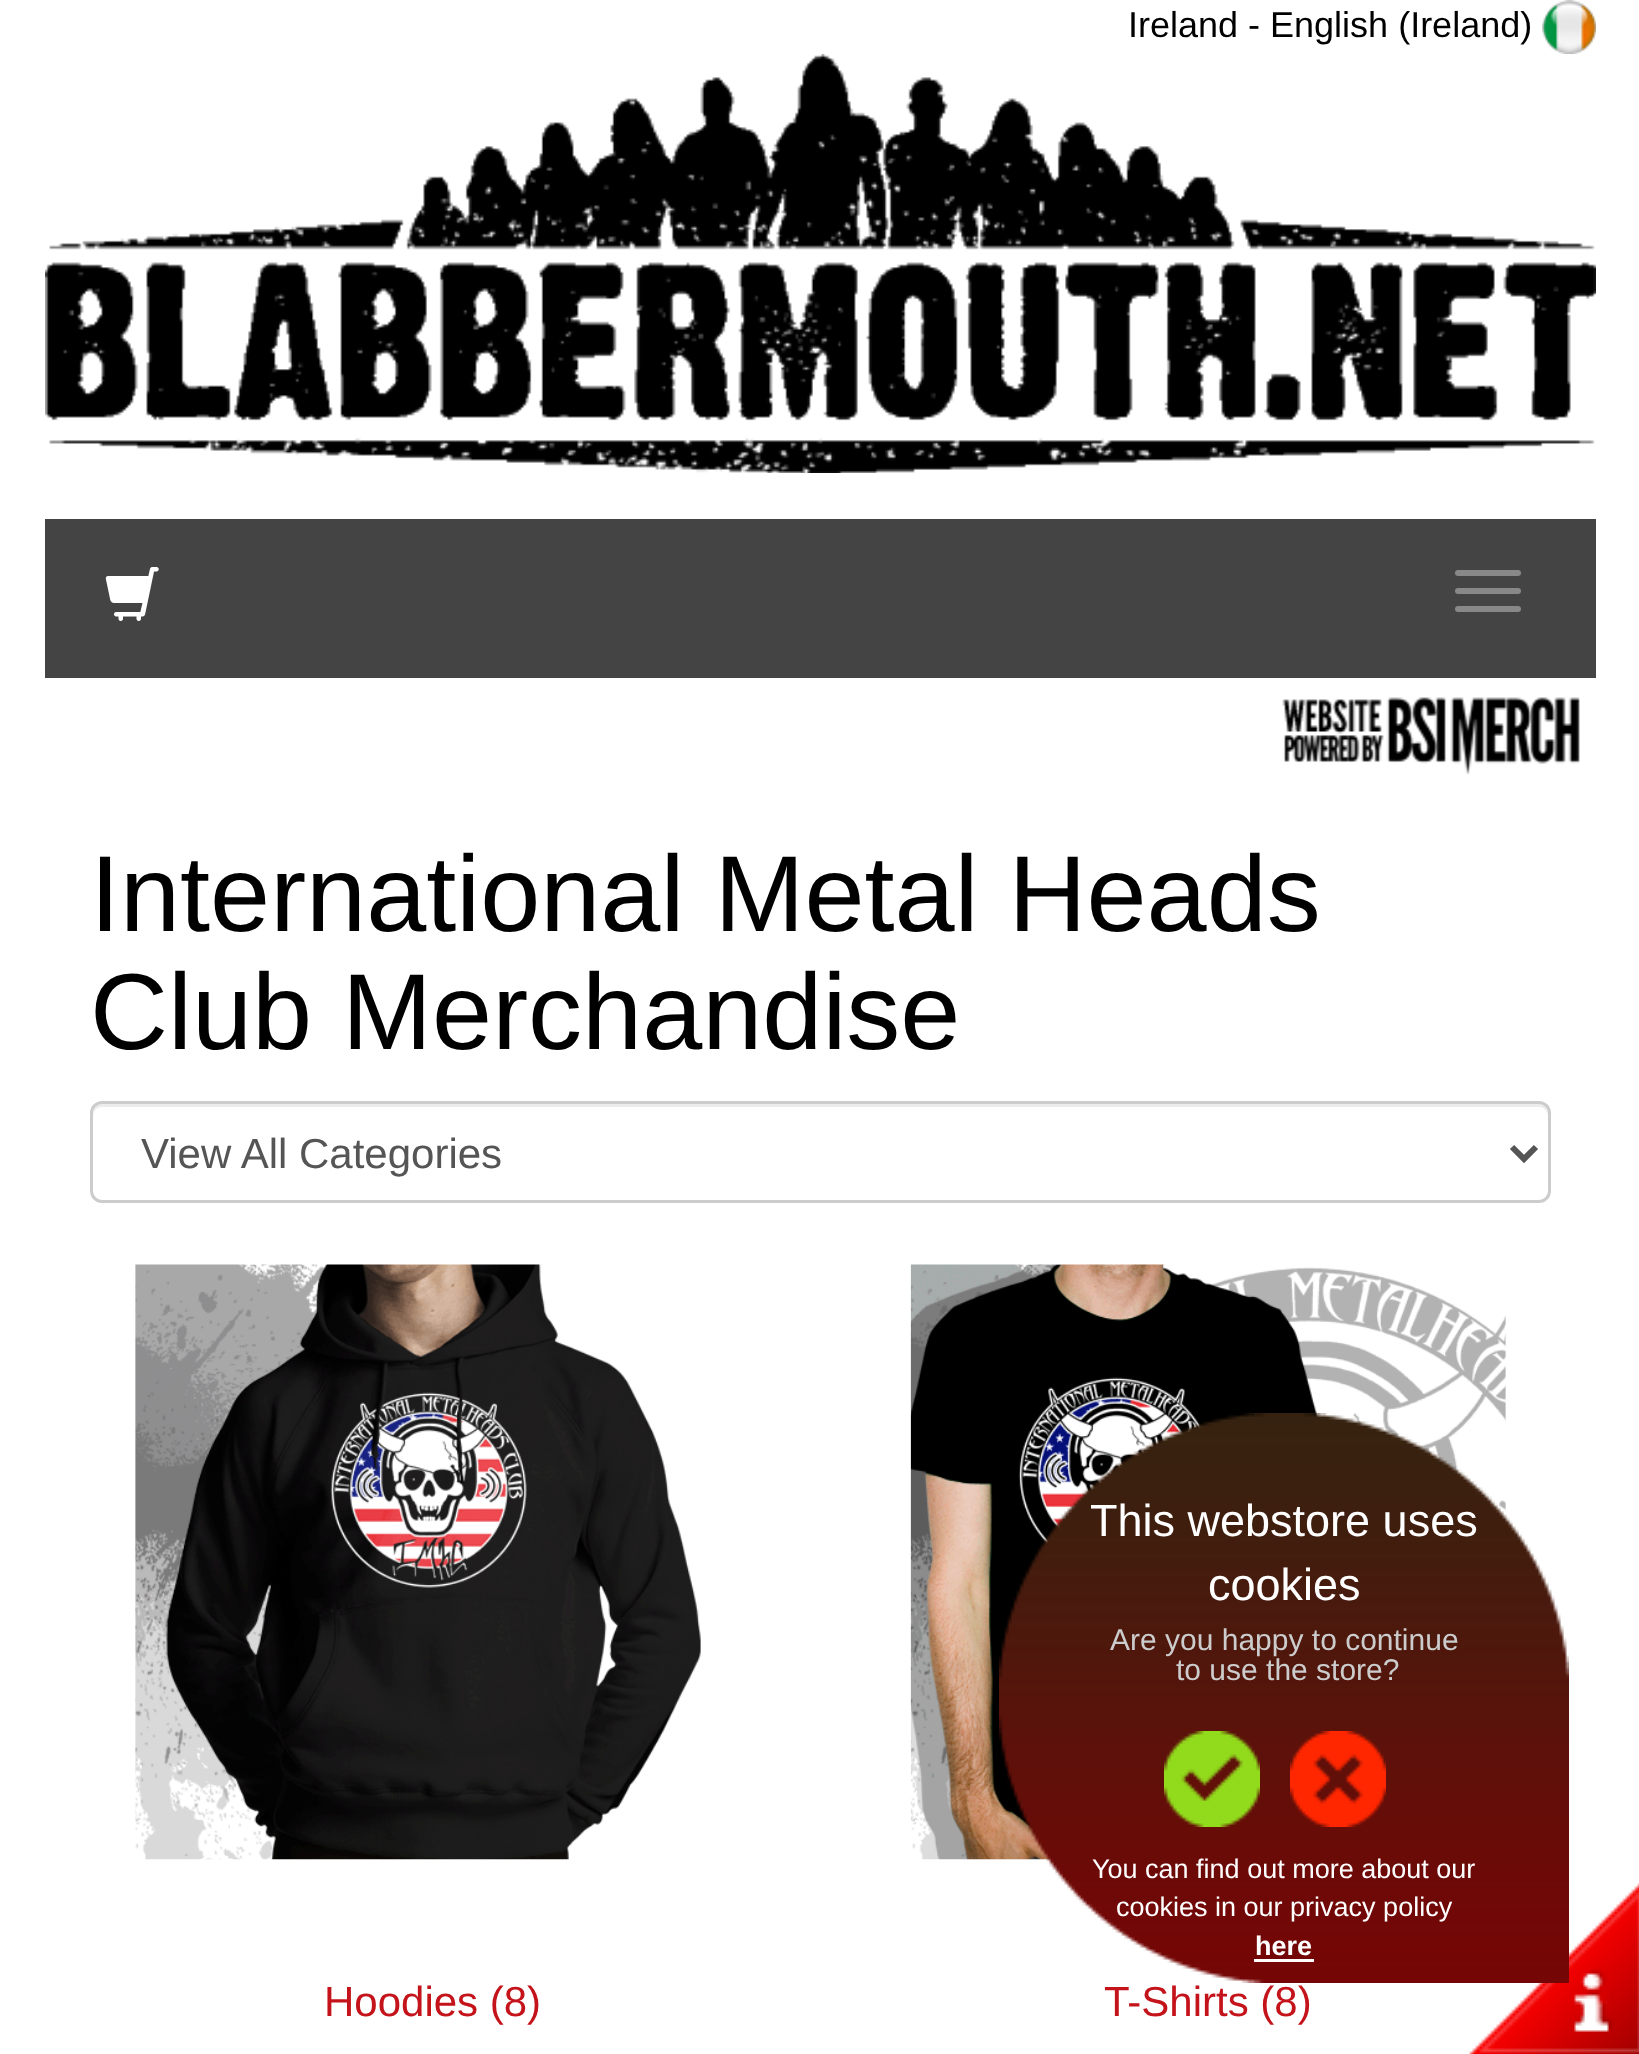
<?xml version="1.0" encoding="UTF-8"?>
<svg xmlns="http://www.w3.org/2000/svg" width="1639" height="2054">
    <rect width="100%" height="100%" fill="#FFFFFF"/>
    <text x="1128" y="37" font-family="Liberation Sans" font-size="36" fill="#000000">Ireland - English (Ireland)</text>
    <image x="1542" y="0" width="54" height="54" href="img_01.png"/>
    <image x="45" y="54" width="1551" height="419" href="img_02.png"/>
    <rect x="45" y="519" width="1551" height="159" fill="#444444"/>
    <image x="105" y="567" width="54" height="54" href="img_03.png"/>
    <rect x="1455" y="570" width="66" height="6" rx="3" fill="#888888"/>
    <rect x="1455" y="588" width="66" height="6" rx="3" fill="#888888"/>
    <rect x="1455" y="606" width="66" height="6" rx="3" fill="#888888"/>
    <image x="1282" y="697" width="298" height="78" href="img_04.png"/>
    <text font-family="Liberation Sans" font-size="108" fill="#000000">
        <tspan x="90" y="931">International Metal Heads</tspan>
        <tspan x="90" y="1049">Club Merchandise</tspan>
    </text>
    <path d="M 102 1107 H 1539 C 1544 1107 1548 1111 1548 1116 V 1113 C 1548 1108 1544 1104 1539 1104 H 102 C 97 1104 93 1108 93 1113 V 1116 C 93 1111 97 1107 102 1107 Z" fill="#ECECEC"/>
    <rect x="91.5" y="1102.5" width="1458" height="99" rx="10.5" fill="none" stroke="#CCCCCC" stroke-width="3"/>
    <path d="M 1512 1147 L 1524 1159 L 1536 1147" fill="none" stroke="#555555" stroke-width="6"/>
    <text x="141" y="1168" font-family="Liberation Sans" font-size="42" fill="#555555">View All Categories</text>
    <image x="135" y="1264" width="566" height="596" href="img_05.png"/>
    <text x="324" y="2016" font-family="Liberation Sans" font-size="42" fill="#C4131A">Hoodies (8)</text>
    <image x="910" y="1264" width="596" height="596" href="img_06.png"/>
    <text x="1104" y="2016" font-family="Liberation Sans" font-size="42" fill="#C4131A">T-Shirts (8)</text>
    <image x="1469" y="1883" width="170" height="171" href="img_10.png"/>
    <image x="999" y="1413" width="570" height="570" href="img_07.png"/>
    <text x="1090" y="1536" font-family="Liberation Sans" font-size="45" fill="#FFFFFF">This webstore uses</text>
    <text x="1208" y="1600" font-family="Liberation Sans" font-size="45" fill="#FFFFFF">cookies</text>
    <text x="1110" y="1650" font-family="Liberation Sans" font-size="30" fill="#CCCCCC">Are you happy to continue</text>
    <text x="1176" y="1680" font-family="Liberation Sans" font-size="30" fill="#CCCCCC">to use the store?</text>
    <image x="1164" y="1731" width="96" height="96" href="img_08.png"/>
    <image x="1290" y="1731" width="96" height="96" href="img_09.png"/>
    <text x="1092" y="1878" font-family="Liberation Sans" font-size="27" fill="#FFFFFF">You can find out more about our</text>
    <text x="1116" y="1916" font-family="Liberation Sans" font-size="27" fill="#FFFFFF">cookies in our privacy policy</text>
    <text x="1255" y="1955" font-family="Liberation Sans" font-size="27" font-weight="700" fill="#FFFFFF">here</text>
    <rect x="1254" y="1959" width="60" height="3" fill="#FFFFFF"/>
</svg>
